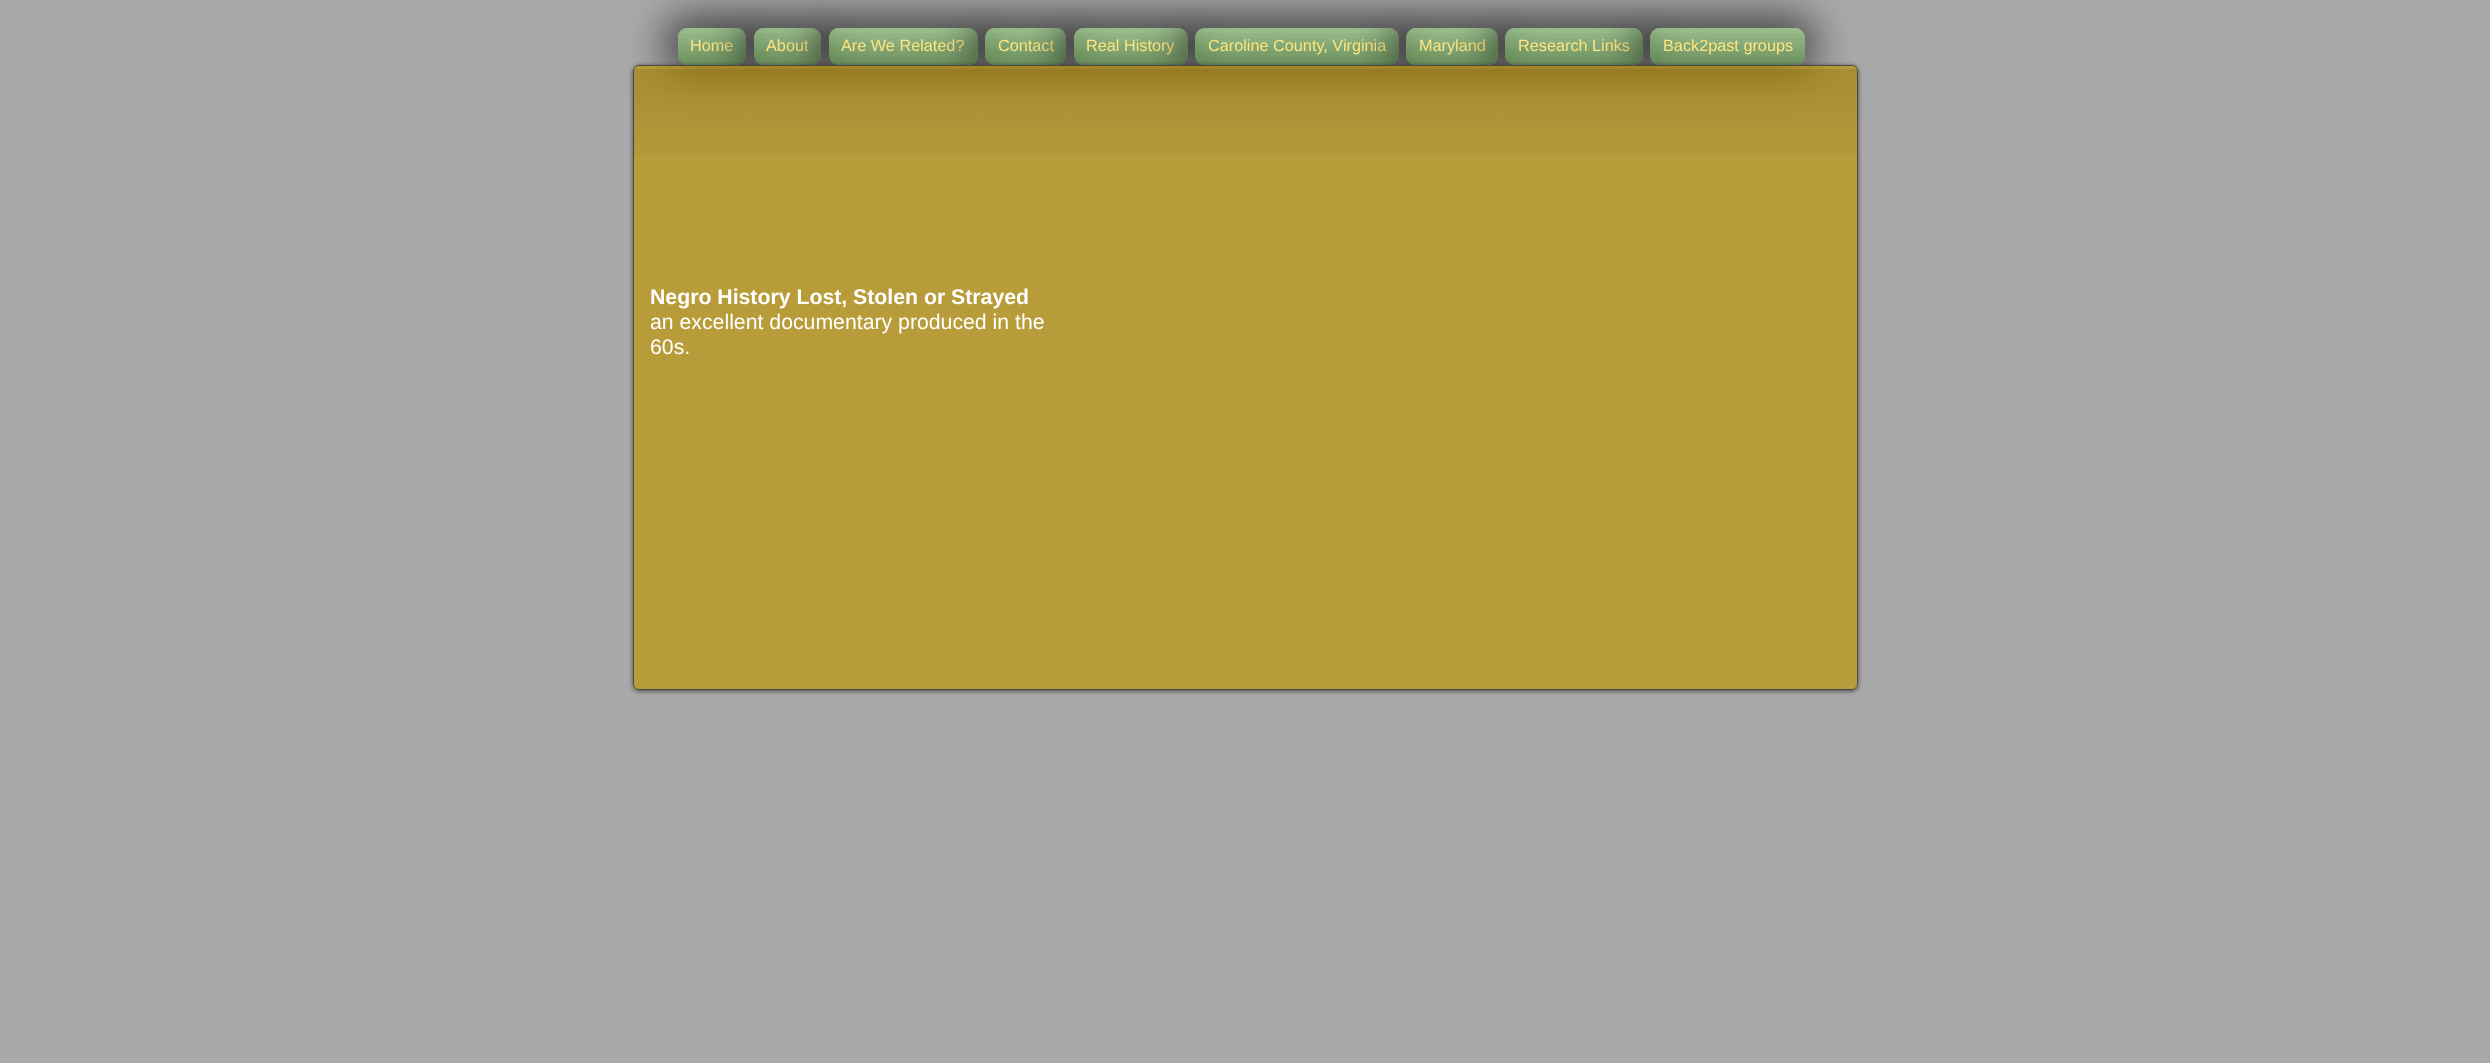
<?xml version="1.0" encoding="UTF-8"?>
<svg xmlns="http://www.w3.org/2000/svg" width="2490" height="1063">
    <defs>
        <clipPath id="clip1"><path d="M 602 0 H 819 V 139 H 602 Z M 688 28 H 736 C 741.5 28 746 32.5 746 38 V 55 C 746 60.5 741.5 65 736 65 H 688 C 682.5 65 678 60.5 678 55 V 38 C 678 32.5 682.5 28 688 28 Z" clip-rule="evenodd"/></clipPath>
        <filter id="blur1" x="-50%" y="-200%" width="200%" height="500%"><feGaussianBlur stdDeviation="20.5"/></filter>
        <clipPath id="clip2"><path d="M 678 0 H 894 V 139 H 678 Z M 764 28 H 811 C 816.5 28 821 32.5 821 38 V 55 C 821 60.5 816.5 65 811 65 H 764 C 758.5 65 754 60.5 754 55 V 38 C 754 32.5 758.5 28 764 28 Z" clip-rule="evenodd"/></clipPath>
        <clipPath id="clip3"><path d="M 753 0 H 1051 V 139 H 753 Z M 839 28 H 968 C 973.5 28 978 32.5 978 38 V 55 C 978 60.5 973.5 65 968 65 H 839 C 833.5 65 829 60.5 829 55 V 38 C 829 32.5 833.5 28 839 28 Z" clip-rule="evenodd"/></clipPath>
        <clipPath id="clip4"><path d="M 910 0 H 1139 V 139 H 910 Z M 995 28 H 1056 C 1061.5 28 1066 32.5 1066 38 V 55 C 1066 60.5 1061.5 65 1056 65 H 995 C 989.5 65 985 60.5 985 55 V 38 C 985 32.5 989.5 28 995 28 Z" clip-rule="evenodd"/></clipPath>
        <clipPath id="clip5"><path d="M 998 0 H 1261 V 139 H 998 Z M 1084 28 H 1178 C 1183.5 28 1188 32.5 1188 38 V 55 C 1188 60.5 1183.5 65 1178 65 H 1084 C 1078.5 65 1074 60.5 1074 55 V 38 C 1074 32.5 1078.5 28 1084 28 Z" clip-rule="evenodd"/></clipPath>
        <clipPath id="clip6"><path d="M 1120 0 H 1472 V 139 H 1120 Z M 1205 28 H 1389 C 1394.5 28 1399 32.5 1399 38 V 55 C 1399 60.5 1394.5 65 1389 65 H 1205 C 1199.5 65 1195 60.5 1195 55 V 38 C 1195 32.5 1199.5 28 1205 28 Z" clip-rule="evenodd"/></clipPath>
        <clipPath id="clip7"><path d="M 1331 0 H 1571 V 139 H 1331 Z M 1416 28 H 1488 C 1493.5 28 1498 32.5 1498 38 V 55 C 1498 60.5 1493.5 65 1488 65 H 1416 C 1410.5 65 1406 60.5 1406 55 V 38 C 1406 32.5 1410.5 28 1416 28 Z" clip-rule="evenodd"/></clipPath>
        <clipPath id="clip8"><path d="M 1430 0 H 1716 V 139 H 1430 Z M 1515 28 H 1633 C 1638.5 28 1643 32.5 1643 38 V 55 C 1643 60.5 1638.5 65 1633 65 H 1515 C 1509.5 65 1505 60.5 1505 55 V 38 C 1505 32.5 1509.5 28 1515 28 Z" clip-rule="evenodd"/></clipPath>
        <clipPath id="clip9"><path d="M 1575 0 H 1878 V 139 H 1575 Z M 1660 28 H 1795 C 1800.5 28 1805 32.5 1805 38 V 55 C 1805 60.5 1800.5 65 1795 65 H 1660 C 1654.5 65 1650 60.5 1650 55 V 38 C 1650 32.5 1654.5 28 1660 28 Z" clip-rule="evenodd"/></clipPath>
        <clipPath id="clip10"><path d="M 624 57 H 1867 V 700 H 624 Z M 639 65 H 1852 C 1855.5 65 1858 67.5 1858 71 V 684 C 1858 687.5 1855.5 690 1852 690 H 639 C 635.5 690 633 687.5 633 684 V 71 C 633 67.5 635.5 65 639 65 Z" clip-rule="evenodd"/></clipPath>
        <filter id="blur2" x="-50%" y="-200%" width="200%" height="500%"><feGaussianBlur stdDeviation="2.5"/></filter>
    </defs>
    <rect width="100%" height="100%" fill="#A9A9A9"/>
    <g clip-path="url(#clip1)">
        <rect x="665" y="16" width="91" height="60" rx="21" fill="#000000" fill-opacity="0.6" filter="url(#blur1)"/>
    </g>
    <rect x="678" y="28" width="68" height="37" rx="10" fill="#68B04D" fill-opacity="0.63"/>
    <image x="678" y="28" width="68" height="37" href="img_01.png"/>
    <image x="678" y="33" width="68" height="32" href="img_02.png"/>
    <text x="690" y="51" font-family="Liberation Sans" font-size="16.25" fill="#FFE57F">Home</text>
    <g clip-path="url(#clip2)">
        <rect x="741" y="16" width="90" height="60" rx="21" fill="#000000" fill-opacity="0.6" filter="url(#blur1)"/>
    </g>
    <rect x="754" y="28" width="67" height="37" rx="10" fill="#68B04D" fill-opacity="0.63"/>
    <image x="754" y="28" width="67" height="37" href="img_03.png"/>
    <image x="754" y="33" width="67" height="32" href="img_04.png"/>
    <text x="766" y="51" font-family="Liberation Sans" font-size="16.25" fill="#FFE57F">About</text>
    <g clip-path="url(#clip3)">
        <rect x="816" y="16" width="172" height="60" rx="21" fill="#000000" fill-opacity="0.6" filter="url(#blur1)"/>
    </g>
    <rect x="829" y="28" width="149" height="37" rx="10" fill="#68B04D" fill-opacity="0.63"/>
    <image x="829" y="28" width="148" height="37" href="img_05.png"/>
    <image x="829" y="33" width="148" height="32" href="img_06.png"/>
    <text x="841" y="51" font-family="Liberation Sans" font-size="16.25" fill="#FFE57F">Are We Related?</text>
    <g clip-path="url(#clip4)">
        <rect x="973" y="16" width="103" height="60" rx="21" fill="#000000" fill-opacity="0.6" filter="url(#blur1)"/>
    </g>
    <rect x="985" y="28" width="81" height="37" rx="10" fill="#68B04D" fill-opacity="0.63"/>
    <image x="985" y="28" width="81" height="37" href="img_07.png"/>
    <image x="985" y="33" width="81" height="32" href="img_08.png"/>
    <text x="998" y="51" font-family="Liberation Sans" font-size="16.25" fill="#FFE57F">Contact</text>
    <g clip-path="url(#clip5)">
        <rect x="1061" y="16" width="137" height="60" rx="21" fill="#000000" fill-opacity="0.6" filter="url(#blur1)"/>
    </g>
    <rect x="1074" y="28" width="114" height="37" rx="10" fill="#68B04D" fill-opacity="0.63"/>
    <image x="1074" y="28" width="113" height="37" href="img_09.png"/>
    <image x="1074" y="33" width="113" height="32" href="img_10.png"/>
    <text x="1086" y="51" font-family="Liberation Sans" font-size="16.25" fill="#FFE57F">Real History</text>
    <g clip-path="url(#clip6)">
        <rect x="1183" y="16" width="226" height="60" rx="21" fill="#000000" fill-opacity="0.6" filter="url(#blur1)"/>
    </g>
    <rect x="1195" y="28" width="204" height="37" rx="10" fill="#68B04D" fill-opacity="0.63"/>
    <image x="1195" y="28" width="204" height="37" href="img_11.png"/>
    <image x="1195" y="33" width="204" height="32" href="img_12.png"/>
    <text x="1208" y="51" font-family="Liberation Sans" font-size="16.25" fill="#FFE57F">Caroline County, Virginia</text>
    <g clip-path="url(#clip7)">
        <rect x="1394" y="16" width="114" height="60" rx="21" fill="#000000" fill-opacity="0.6" filter="url(#blur1)"/>
    </g>
    <rect x="1406" y="28" width="92" height="37" rx="10" fill="#68B04D" fill-opacity="0.63"/>
    <image x="1406" y="28" width="91" height="37" href="img_13.png"/>
    <image x="1406" y="33" width="91" height="32" href="img_14.png"/>
    <text x="1419" y="51" font-family="Liberation Sans" font-size="16.25" fill="#FFE57F">Maryland</text>
    <g clip-path="url(#clip8)">
        <rect x="1493" y="16" width="160" height="60" rx="21" fill="#000000" fill-opacity="0.6" filter="url(#blur1)"/>
    </g>
    <rect x="1505" y="28" width="138" height="37" rx="10" fill="#68B04D" fill-opacity="0.63"/>
    <image x="1505" y="28" width="137" height="37" href="img_15.png"/>
    <image x="1505" y="33" width="137" height="32" href="img_16.png"/>
    <text x="1518" y="51" font-family="Liberation Sans" font-size="16.25" fill="#FFE57F">Research Links</text>
    <g clip-path="url(#clip9)">
        <rect x="1638" y="16" width="177" height="60" rx="21" fill="#000000" fill-opacity="0.6" filter="url(#blur1)"/>
    </g>
    <rect x="1650" y="28" width="155" height="37" rx="10" fill="#68B04D" fill-opacity="0.63"/>
    <image x="1650" y="28" width="155" height="37" href="img_17.png"/>
    <image x="1650" y="33" width="155" height="32" href="img_18.png"/>
    <text x="1663" y="51" font-family="Liberation Sans" font-size="16.25" fill="#FFE57F">Back2past groups</text>
    <g clip-path="url(#clip10)">
        <rect x="633" y="66" width="1225" height="625" rx="6" fill="#000000" fill-opacity="0.6" filter="url(#blur2)"/>
    </g>
    <rect x="633" y="65" width="1225" height="625" rx="6" fill="#C19609" fill-opacity="0.69"/>
    <image x="633" y="69" width="1224" height="85" href="img_19.png"/>
    <rect x="633.5" y="65.5" width="1224" height="624" rx="5.5" fill="none" stroke="#4A4A4A"/>
    <text x="650" y="304" font-family="Liberation Sans" font-size="21.25" font-weight="700" fill="#FFFFFF">Negro History Lost, Stolen or Strayed</text>
    <text font-family="Liberation Sans" font-size="21.25" fill="#FFFFFF">
        <tspan x="650" y="329">an excellent documentary produced in the</tspan>
        <tspan x="650" y="354">60s.</tspan>
    </text>
</svg>
